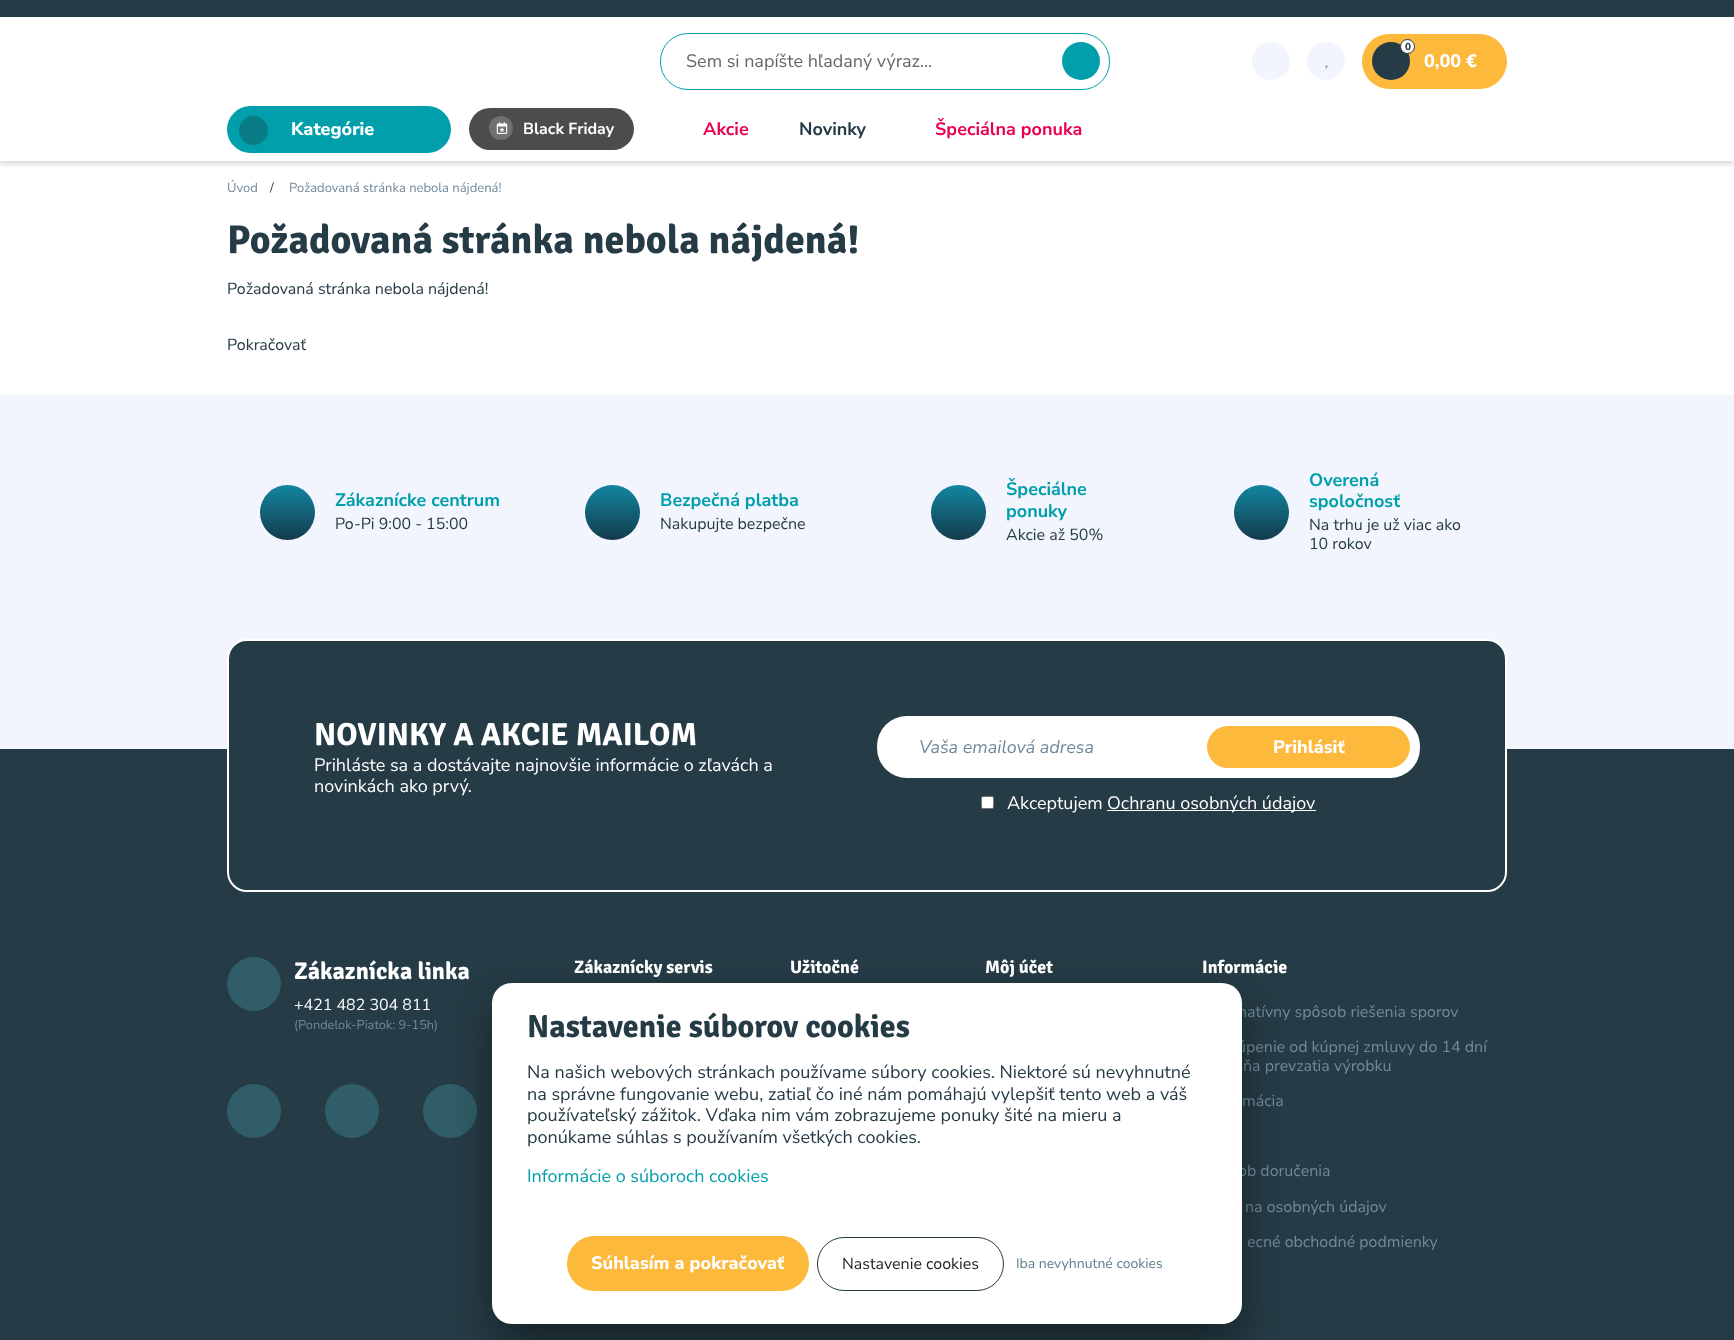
<?xml version="1.0" encoding="UTF-8"?>
<svg xmlns="http://www.w3.org/2000/svg" width="1734" height="1340">
    <defs>
        <clipPath id="clip1"><rect x="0" y="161" width="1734" height="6"/></clipPath>
        <filter id="blur1" x="-50%" y="-200%" width="200%" height="500%"><feGaussianBlur stdDeviation="3"/></filter>
        <linearGradient id="g1" gradientUnits="userSpaceOnUse" x1="288" y1="485" x2="288" y2="540"><stop offset="0" stop-color="#1386A2"/><stop offset="1" stop-color="#133B4B"/></linearGradient>
        <linearGradient id="g2" gradientUnits="userSpaceOnUse" x1="613" y1="485" x2="613" y2="540"><stop offset="0" stop-color="#1386A2"/><stop offset="1" stop-color="#133B4B"/></linearGradient>
        <linearGradient id="g3" gradientUnits="userSpaceOnUse" x1="959" y1="485" x2="959" y2="540"><stop offset="0" stop-color="#1386A2"/><stop offset="1" stop-color="#133B4B"/></linearGradient>
        <linearGradient id="g4" gradientUnits="userSpaceOnUse" x1="1262" y1="485" x2="1262" y2="540"><stop offset="0" stop-color="#1386A2"/><stop offset="1" stop-color="#133B4B"/></linearGradient>
        <filter id="blur2" x="-50%" y="-200%" width="200%" height="500%"><feGaussianBlur stdDeviation="20"/></filter>
    </defs>
    <rect width="100%" height="100%" fill="#FFFFFF"/>
    <rect x="0" y="0" width="1734" height="17" fill="#253B45"/>
    <g clip-path="url(#clip1)">
        <rect x="0" y="20" width="1734" height="144" fill="#000000" fill-opacity="0.16" filter="url(#blur1)"/>
    </g>
    <rect x="660.5" y="33.5" width="449" height="56" rx="27.5" fill="none" stroke="#019EAC"/>
    <text x="686" y="67" font-family="Nunito Sans" font-size="18" fill="#666666">Sem si napíšte hľadaný výraz...</text>
    <circle cx="1081" cy="61" r="19" fill="#019EAC"/>
    <circle cx="1271" cy="61" r="19" fill="#F2F5FD"/>
    <circle cx="1326" cy="61" r="19" fill="#F2F5FD"/>
    <image x="1325" y="65" width="3" height="4" href="img_01.png"/>
    <rect x="1362" y="34" width="145" height="55" rx="27.5" fill="#FCB93C"/>
    <circle cx="1391" cy="61" r="19" fill="#253B45"/>
    <circle cx="1407.5" cy="46.5" r="7" fill="#FFFFFF" stroke="#253B45"/>
    <text x="1405" y="50" font-family="Nunito Sans" font-size="10" font-weight="800" fill="#253B45">0</text>
    <text x="1424" y="67" font-family="Nunito Sans" font-size="18" font-weight="800" fill="#FFFFFF">0,00 €</text>
    <rect x="227" y="106" width="224" height="47" rx="23.5" fill="#019EAC"/>
    <circle cx="253.5" cy="130.5" r="14.5" fill="#097C86"/>
    <text x="291" y="135" font-family="Nunito Sans" font-size="18" font-weight="800" fill="#FFFFFF">Kategórie</text>
    <rect x="469" y="108" width="165" height="42" rx="21" fill="#4C4C4C"/>
    <circle cx="501" cy="128" r="12" fill="#707070"/>
    <image x="496" y="122" width="12" height="12" href="img_02.png"/>
    <text x="523" y="134" font-family="Nunito Sans" font-size="16" font-weight="700" fill="#FFFFFF">Black Friday</text>
    <text x="703" y="135" font-family="Nunito Sans" font-size="18" font-weight="700" fill="#EA0051">Akcie</text>
    <text x="799" y="135" font-family="Nunito Sans" font-size="18" font-weight="700" fill="#253B45">Novinky</text>
    <text x="935" y="135" font-family="Nunito Sans" font-size="18" font-weight="700" fill="#EA0051">Špeciálna ponuka</text>
    <text x="227" y="192" font-family="Nunito Sans" font-size="13" fill="#71899B">Úvod</text>
    <text x="270" y="192" font-family="Nunito Sans" font-size="13" fill="#253B45">/</text>
    <text x="289" y="192" font-family="Nunito Sans" font-size="13" fill="#71899B">Požadovaná stránka nebola nájdená!</text>
    <text x="227" y="253" font-family="Signika" font-size="40" font-weight="700" fill="#253B45">Požadovaná stránka nebola nájdená!</text>
    <text x="227" y="294" font-family="Nunito Sans" font-size="16" fill="#253B45">Požadovaná stránka nebola nájdená!</text>
    <text x="227" y="350" font-family="Nunito Sans" font-size="16" fill="#253B45">Pokračovať</text>
    <rect x="0" y="395" width="1734" height="354" fill="#F2F5FD"/>
    <circle cx="287.5" cy="512.5" r="27.5" fill="url(#g1)"/>
    <text x="335" y="506" font-family="Nunito Sans" font-size="18" font-weight="700" fill="#019EAC">Zákaznícke centrum</text>
    <text x="335" y="529" font-family="Nunito Sans" font-size="16" fill="#253B45">Po-Pi 9:00 - 15:00</text>
    <circle cx="612.5" cy="512.5" r="27.5" fill="url(#g2)"/>
    <text x="660" y="506" font-family="Nunito Sans" font-size="18" font-weight="700" fill="#019EAC">Bezpečná platba</text>
    <text x="660" y="529" font-family="Nunito Sans" font-size="16" fill="#253B45">Nakupujte bezpečne</text>
    <circle cx="958.5" cy="512.5" r="27.5" fill="url(#g3)"/>
    <text font-family="Nunito Sans" font-size="18" font-weight="700" fill="#019EAC">
        <tspan x="1006" y="495">Špeciálne</tspan>
        <tspan x="1006" y="517">ponuky</tspan>
    </text>
    <text x="1006" y="540" font-family="Nunito Sans" font-size="16" fill="#253B45">Akcie až 50%</text>
    <circle cx="1261.5" cy="512.5" r="27.5" fill="url(#g4)"/>
    <text font-family="Nunito Sans" font-size="18" font-weight="700" fill="#019EAC">
        <tspan x="1309" y="486">Overená</tspan>
        <tspan x="1309" y="507">spoločnosť</tspan>
    </text>
    <text font-family="Nunito Sans" font-size="16" fill="#253B45">
        <tspan x="1309" y="530">Na trhu je už viac ako</tspan>
        <tspan x="1309" y="549">10 rokov</tspan>
    </text>
    <rect x="0" y="749" width="1734" height="591" fill="#253B45"/>
    <rect x="228" y="640" width="1278" height="251" rx="19" fill="#253B45" stroke="#FFFFFF" stroke-width="2"/>
    <text x="314" y="745" font-family="Signika" font-size="32" font-weight="700" fill="#FFFFFF">NOVINKY A AKCIE MAILOM</text>
    <text font-family="Nunito Sans" font-size="18" fill="#FFFFFF">
        <tspan x="314" y="771">Prihláste sa a dostávajte najnovšie informácie o zľavách a</tspan>
        <tspan x="314" y="792">novinkách ako prvý.</tspan>
    </text>
    <rect x="877" y="716" width="543" height="62" rx="30" fill="#FFFFFF"/>
    <text x="919" y="753" font-family="Nunito Sans" font-size="18" font-weight="200" font-style="italic" fill="#71899B">Vaša emailová adresa</text>
    <rect x="1207" y="726" width="203" height="42" rx="21" fill="#FCB93C"/>
    <text x="1273" y="753" font-family="Nunito Sans" font-size="18" font-weight="800" fill="#FFFFFF">Prihlásiť</text>
    <rect x="981.5" y="796.5" width="12" height="12" rx="1.5" fill="#FFFFFF" stroke="#767676"/>
    <text x="1007" y="809" font-family="Nunito Sans" font-size="18" fill="#FFFFFF">Akceptujem</text>
    <rect x="1107" y="810" width="209" height="1" fill="#FFFFFF"/>
    <text x="1107" y="809" font-family="Nunito Sans" font-size="18" fill="#FFFFFF">Ochranu osobných údajov</text>
    <circle cx="254" cy="984" r="27" fill="#305D67"/>
    <text x="294" y="979" font-family="Signika" font-size="24" font-weight="700" fill="#FFFFFF">Zákaznícka linka</text>
    <text x="294" y="1010" font-family="Nunito Sans" font-size="16" fill="#FFFFFF">+421 482 304 811</text>
    <text x="294" y="1029" font-family="Nunito Sans" font-size="12.75" fill="#71899B">(Pondelok-Piatok: 9-15h)</text>
    <circle cx="254" cy="1111" r="27" fill="#305D67"/>
    <circle cx="352" cy="1111" r="27" fill="#305D67"/>
    <circle cx="450" cy="1111" r="27" fill="#305D67"/>
    <text x="574" y="973" font-family="Signika" font-size="18" font-weight="700" fill="#FFFFFF">Zákaznícky servis</text>
    <text x="790" y="973" font-family="Signika" font-size="18" font-weight="700" fill="#FFFFFF">Užitočné</text>
    <text x="985" y="973" font-family="Signika" font-size="18" font-weight="700" fill="#FFFFFF">Môj účet</text>
    <text x="1202" y="973" font-family="Signika" font-size="18" font-weight="700" fill="#FFFFFF">Informácie</text>
    <text x="1238" y="1017" font-family="Nunito Sans" font-size="16" fill="#71899B">natívny spôsob riešenia sporov</text>
    <text x="1237" y="1052" font-family="Nunito Sans" font-size="16" fill="#71899B">úpenie od kúpnej zmluvy do 14 dní</text>
    <text x="1243" y="1071" font-family="Nunito Sans" font-size="16" fill="#71899B">ňa prevzatia výrobku</text>
    <text x="1242" y="1106" font-family="Nunito Sans" font-size="16" fill="#71899B">mácia</text>
    <text x="1238" y="1176" font-family="Nunito Sans" font-size="16" fill="#71899B">ob doručenia</text>
    <text x="1245" y="1212" font-family="Nunito Sans" font-size="16" fill="#71899B">na osobných údajov</text>
    <text x="1247" y="1247" font-family="Nunito Sans" font-size="16" fill="#71899B">ecné obchodné podmienky</text>
    <rect x="492" y="1003" width="750" height="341" rx="20" fill="#000000" fill-opacity="0.4" filter="url(#blur2)"/>
    <rect x="492" y="983" width="750" height="341" rx="20" fill="#FFFFFF"/>
    <text x="527" y="1037" font-family="Signika" font-size="32" font-weight="700" fill="#253B45">Nastavenie súborov cookies</text>
    <text font-family="Nunito Sans" font-size="18" fill="#253B45">
        <tspan x="527" y="1078">Na našich webových stránkach používame súbory cookies. Niektoré sú nevyhnutné</tspan>
        <tspan x="527" y="1100">na správne fungovanie webu, zatiaľ čo iné nám pomáhajú vylepšiť tento web a váš</tspan>
        <tspan x="527" y="1121">používateľský zážitok. Vďaka nim vám zobrazujeme ponuky šité na mieru a</tspan>
        <tspan x="527" y="1143">ponúkame súhlas s používaním všetkých cookies.</tspan>
    </text>
    <text x="527" y="1182" font-family="Nunito Sans" font-size="18" fill="#019EAC">Informácie o súboroch cookies</text>
    <rect x="567" y="1236" width="242" height="55" rx="27.5" fill="#FCB93C"/>
    <text x="591" y="1269" font-family="Nunito Sans" font-size="18" font-weight="800" fill="#FFFFFF">Súhlasím a pokračovať</text>
    <rect x="817.5" y="1237.5" width="186" height="53" rx="26.5" fill="none" stroke="#253B45"/>
    <text x="842" y="1269" font-family="Nunito Sans" font-size="16" fill="#212529">Nastavenie cookies</text>
    <text x="1016" y="1268" font-family="Nunito Sans" font-size="14" fill="#607D8B">Iba nevyhnutné cookies</text>
</svg>
